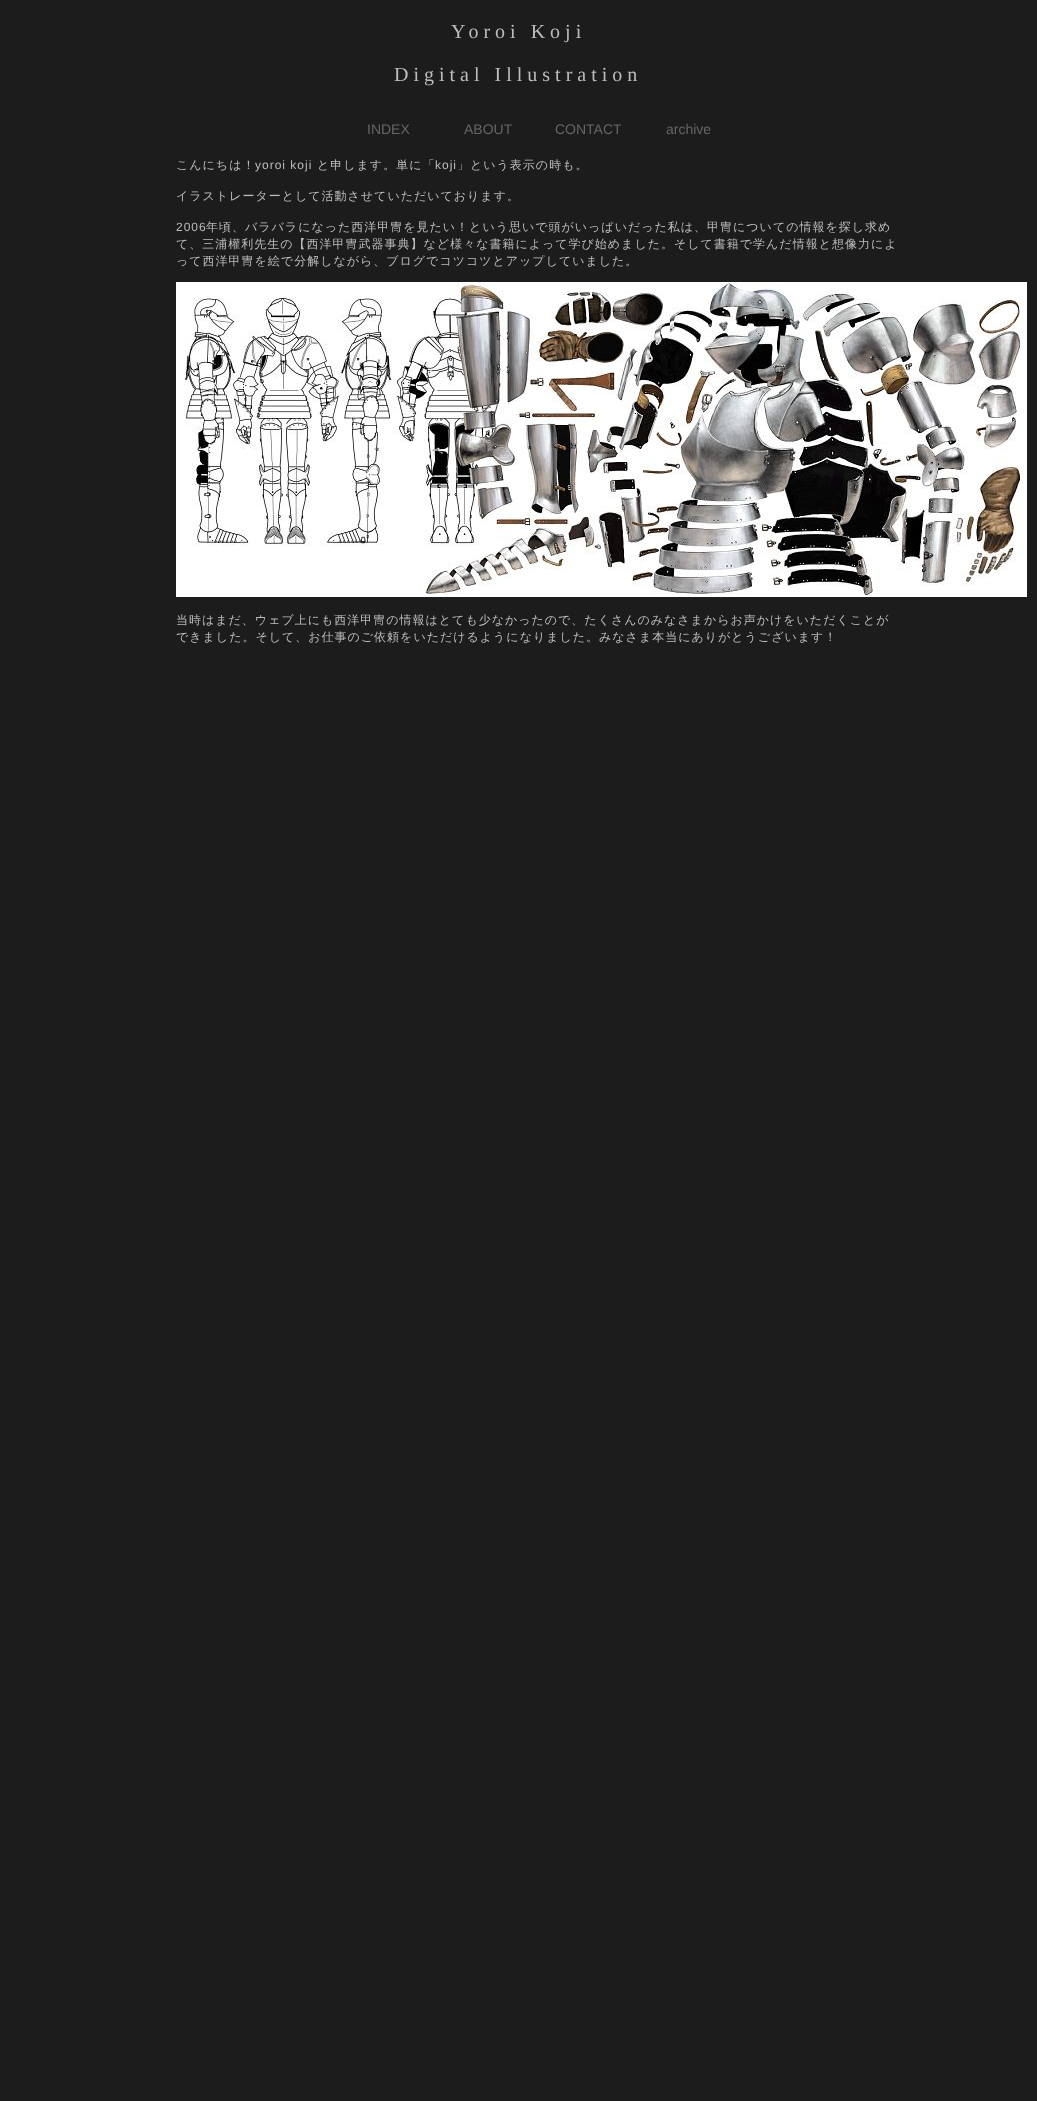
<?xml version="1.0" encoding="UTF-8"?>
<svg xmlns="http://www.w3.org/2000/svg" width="1037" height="2101">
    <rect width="100%" height="100%" fill="#1C1C1C"/>
    <text x="451" y="38" font-family="Liberation Serif" font-size="20" letter-spacing="5" fill="#BDBDBD">Yoroi Koji</text>
    <text x="394" y="81" font-family="Liberation Serif" font-size="20" letter-spacing="5" fill="#BDBDBD">Digital Illustration</text>
    <text x="367" y="134" font-family="Liberation Sans" font-size="14" fill="#666666">INDEX</text>
    <text x="464" y="134" font-family="Liberation Sans" font-size="14" fill="#666666">ABOUT</text>
    <text x="555" y="134" font-family="Liberation Sans" font-size="14" fill="#666666">CONTACT</text>
    <text x="666" y="134" font-family="Liberation Sans" font-size="14" fill="#666666">archive</text>
    <text x="176" y="169" font-family="WenQuanYi Zen Hei" font-size="12" font-weight="500" letter-spacing="1" fill="#BDBDBD">こんにちは！</text>
    <text x="255" y="169" font-family="Liberation Sans" font-size="12" letter-spacing="1" fill="#BDBDBD">yoroi koji</text>
    <text x="317" y="169" font-family="WenQuanYi Zen Hei" font-size="12" font-weight="500" letter-spacing="1" fill="#BDBDBD">と申します。単に「</text>
    <text x="435" y="169" font-family="Liberation Sans" font-size="12" letter-spacing="1" fill="#BDBDBD">koji</text>
    <text x="457" y="169" font-family="WenQuanYi Zen Hei" font-size="12" font-weight="500" letter-spacing="1" fill="#BDBDBD">」という表示の時も。</text>
    <text x="176" y="200" font-family="WenQuanYi Zen Hei" font-size="12" font-weight="500" letter-spacing="1" fill="#BDBDBD">イラストレーターとして活動させていただいております。</text>
    <text x="176" y="231" font-family="Liberation Sans" font-size="12" letter-spacing="1" fill="#BDBDBD">2006</text>
    <text x="206" y="231" font-family="WenQuanYi Zen Hei" font-size="12" font-weight="500" letter-spacing="1" fill="#BDBDBD">年頃、バラバラになった西洋甲冑を見たい！という思いで頭がいっぱいだった私は、甲冑についての情報を探し求め</text>
    <text font-family="WenQuanYi Zen Hei" font-size="12" font-weight="500" letter-spacing="1" fill="#BDBDBD">
        <tspan x="176" y="248">て、三浦權利先生の【西洋甲冑武器事典】など様々な書籍によって学び始めました。そして書籍で学んだ情報と想像力によ</tspan>
        <tspan x="176" y="265">って西洋甲冑を絵で分解しながら、ブログでコツコツとアップしていました。</tspan>
    </text>
    <image x="176" y="282" width="851" height="315" href="img_01.png"/>
    <text font-family="WenQuanYi Zen Hei" font-size="12" font-weight="500" letter-spacing="1" fill="#BDBDBD">
        <tspan x="176" y="624">当時はまだ、ウェブ上にも西洋甲冑の情報はとても少なかったので、たくさんのみなさまからお声かけをいただくことが</tspan>
        <tspan x="176" y="641">できました。そして、お仕事のご依頼をいただけるようになりました。みなさま本当にありがとうございます！</tspan>
    </text>
</svg>
